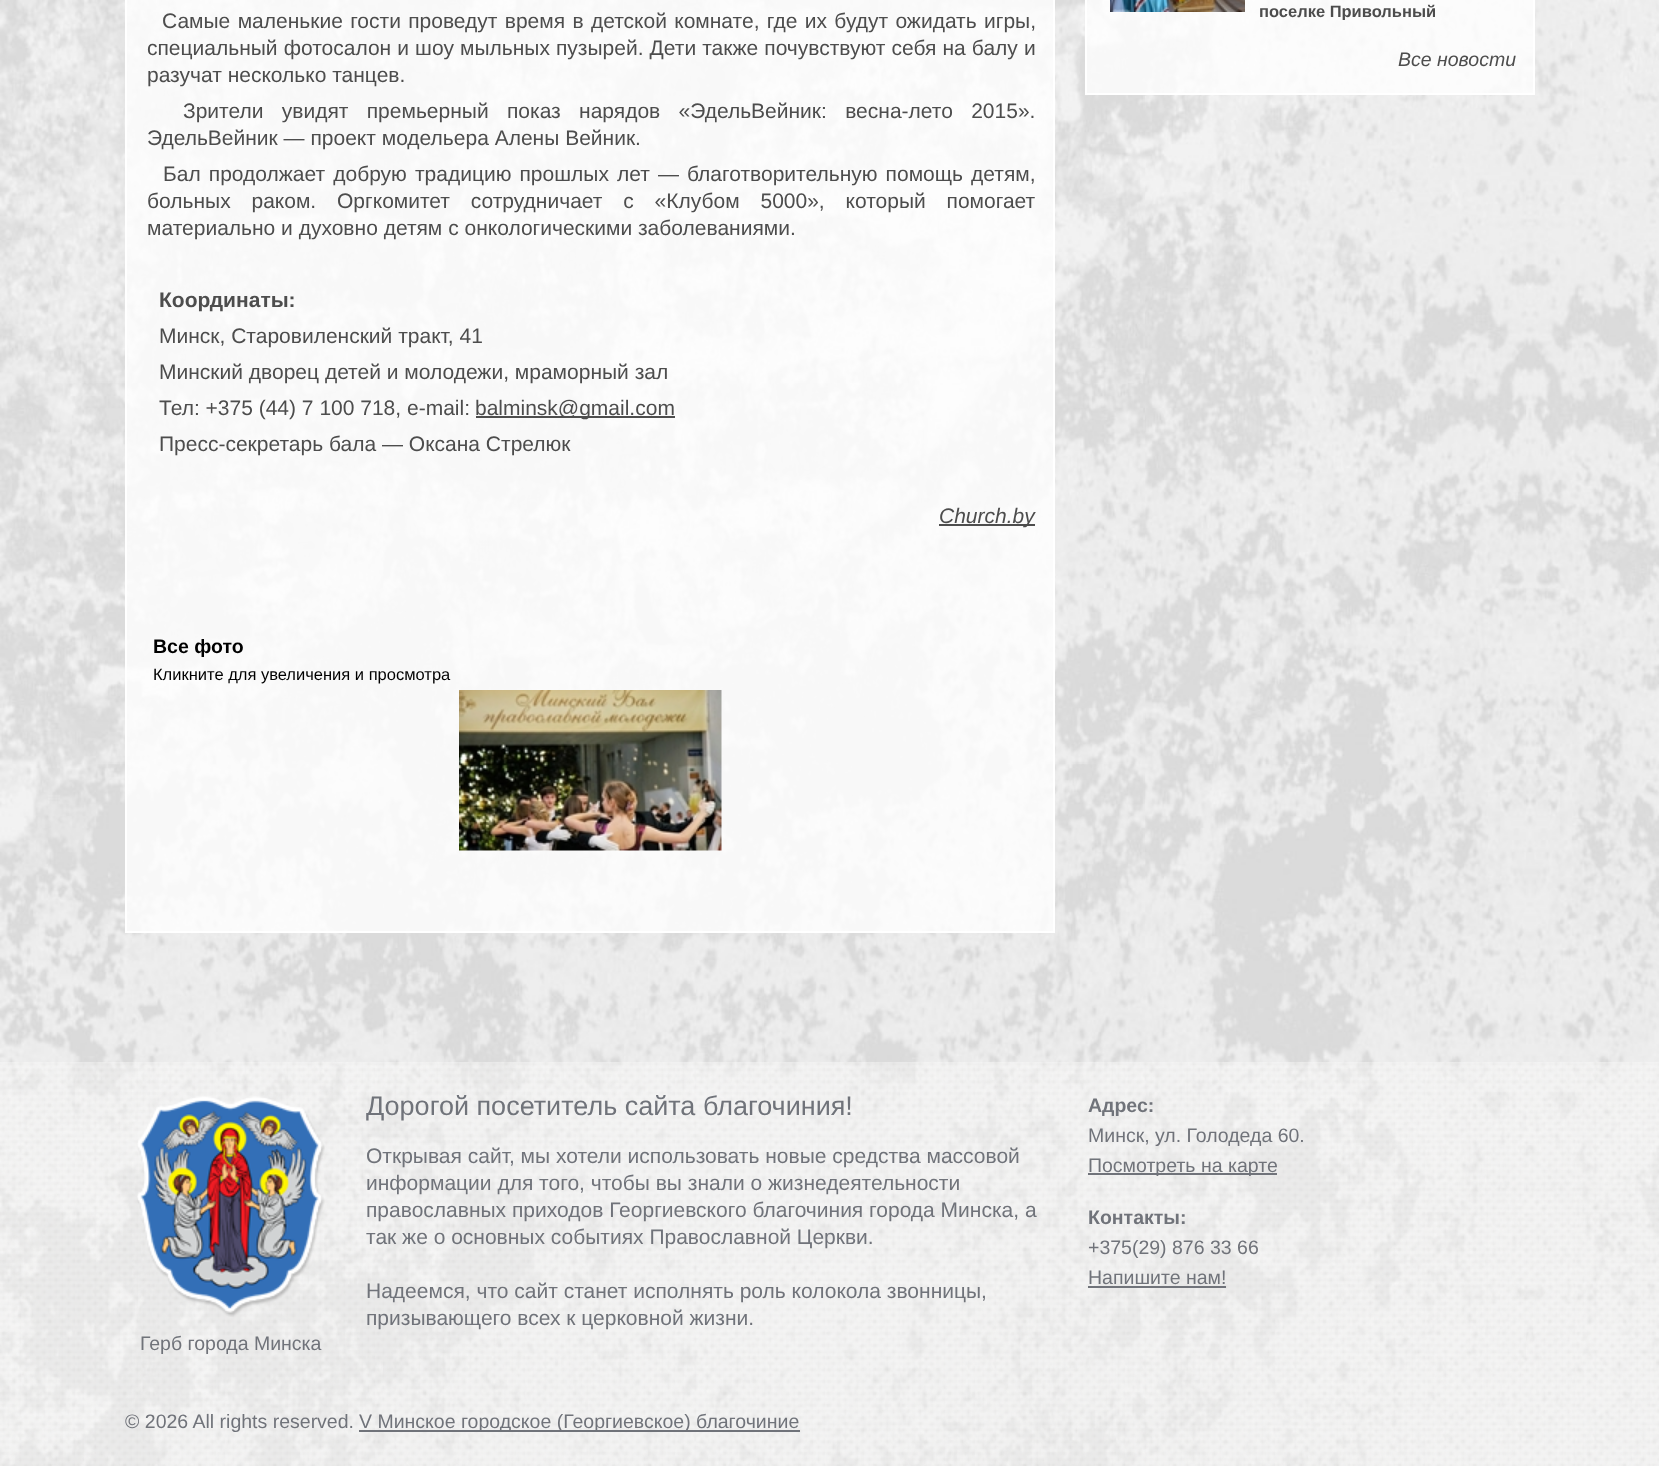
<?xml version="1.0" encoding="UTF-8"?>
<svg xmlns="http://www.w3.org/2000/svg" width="1659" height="1466">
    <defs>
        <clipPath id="clip1"><rect x="1259" y="0" width="274" height="20"/></clipPath>
    </defs>
    <rect width="100%" height="100%" fill="#FFFFFF"/>
    <image x="0" y="0" width="1659" height="1466" href="img_01.png"/>
    <rect x="126" y="-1" width="928" height="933" fill="#FFFFFF" fill-opacity="0.8" stroke="#FFFFFF" stroke-width="2"/>
    <text x="162" y="28" word-spacing="1.5" font-family="Liberation Sans" font-size="21" fill="#4D4D4D">Самые маленькие гости проведут время в детской комнате, где их будут ожидать игры,</text>
    <text font-family="Liberation Sans" font-size="21" fill="#4D4D4D">
        <tspan x="147" y="55" word-spacing="0.25">специальный фотосалон и шоу мыльных пузырей. Дети также почувствуют себя на балу и</tspan>
        <tspan x="147" y="82">разучат несколько танцев.</tspan>
    </text>
    <text x="183" y="118" word-spacing="12.5" font-family="Liberation Sans" font-size="21" fill="#4D4D4D">Зрители увидят премьерный показ нарядов «ЭдельВейник: весна-лето 2015».</text>
    <text x="147" y="145" font-family="Liberation Sans" font-size="21" fill="#4D4D4D">ЭдельВейник — проект модельера Алены Вейник.</text>
    <text x="163" y="181" word-spacing="2.25" font-family="Liberation Sans" font-size="21" fill="#4D4D4D">Бал продолжает добрую традицию прошлых лет — благотворительную помощь детям,</text>
    <text font-family="Liberation Sans" font-size="21" fill="#4D4D4D">
        <tspan x="147" y="208" word-spacing="15">больных раком. Оргкомитет сотрудничает с «Клубом 5000», который помогает</tspan>
        <tspan x="147" y="235">материально и духовно детям с онкологическими заболеваниями.</tspan>
    </text>
    <text x="159" y="307" font-family="Liberation Sans" font-size="21" font-weight="700" fill="#4D4D4D">Координаты:</text>
    <text font-family="Liberation Sans" font-size="21" fill="#4D4D4D">
        <tspan x="159" y="343">Минск, Старовиленский тракт, 41</tspan>
        <tspan x="159" y="379">Минский дворец детей и молодежи, мраморный зал</tspan>
        <tspan x="159" y="415">Тел: +375 (44) 7 100 718, е-mail:</tspan>
    </text>
    <rect x="476" y="416" width="199" height="2" fill="#4D4D4D"/>
    <text x="475" y="415" font-family="Liberation Sans" font-size="21" fill="#4D4D4D">balminsk@gmail.com</text>
    <text x="159" y="451" font-family="Liberation Sans" font-size="21" fill="#4D4D4D">Пресс-секретарь бала — Оксана Стрелюк</text>
    <rect x="939" y="524" width="96" height="2" fill="#4D4D4D"/>
    <text x="939" y="523" font-family="Liberation Sans" font-size="21" font-style="italic" fill="#4D4D4D">Church.by</text>
    <text x="153" y="653" font-family="Liberation Sans" font-size="19.5" font-weight="700" fill="#000000">Все фото</text>
    <text x="153" y="680" font-family="Liberation Sans" font-size="16.5" fill="#000000">Кликните для увеличения и просмотра</text>
    <image x="459" y="690" width="263" height="161" href="img_02.png"/>
    <rect x="1086" y="-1" width="448" height="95" fill="#FFFFFF" fill-opacity="0.8" stroke="#FFFFFF" stroke-width="2"/>
    <image x="1110" y="0" width="135" height="12" href="img_03.png"/>
    <g clip-path="url(#clip1)">
        <text x="1259" y="17" font-family="Liberation Sans" font-size="16.5" font-weight="700" fill="#4D4D4D">поселке Привольный</text>
    </g>
    <text x="1398" y="66" font-family="Liberation Sans" font-size="19.5" font-style="italic" fill="#4D4D4D">Все новости</text>
    <image x="0" y="1062" width="1659" height="404" href="img_04.png"/>
    <text x="366" y="1115" font-family="Liberation Sans" font-size="27" fill="#70737A">Дорогой посетитель сайта благочиния!</text>
    <text font-family="Liberation Sans" font-size="21" fill="#70737A">
        <tspan x="366" y="1163">Открывая сайт, мы хотели использовать новые средства массовой</tspan>
        <tspan x="366" y="1190">информации для того, чтобы вы знали о жизнедеятельности</tspan>
        <tspan x="366" y="1217">православных приходов Георгиевского благочиния города Минска, а</tspan>
        <tspan x="366" y="1244">так же о основных событиях Православной Церкви.</tspan>
    </text>
    <text font-family="Liberation Sans" font-size="21" fill="#70737A">
        <tspan x="366" y="1298">Надеемся, что сайт станет исполнять роль колокола звонницы,</tspan>
        <tspan x="366" y="1325">призывающего всех к церковной жизни.</tspan>
    </text>
    <image x="137" y="1096" width="188" height="221" href="img_05.png"/>
    <text x="140" y="1350" font-family="Liberation Sans" font-size="19.5" fill="#70737A">Герб города Минска</text>
    <text x="1088" y="1112" font-family="Liberation Sans" font-size="19.5" font-weight="700" fill="#70737A">Адрес:</text>
    <text x="1088" y="1142" font-family="Liberation Sans" font-size="19.5" fill="#70737A">Минск, ул. Голодеда 60.</text>
    <rect x="1088" y="1173" width="189" height="2" fill="#70737A"/>
    <text x="1088" y="1172" font-family="Liberation Sans" font-size="19.5" fill="#70737A">Посмотреть на карте</text>
    <text x="1088" y="1224" font-family="Liberation Sans" font-size="19.5" font-weight="700" fill="#70737A">Контакты:</text>
    <text font-family="Liberation Sans" font-size="19.5" fill="#70737A">
        <tspan x="1088" y="1254">+375(29) 876 33 66</tspan>
        <tspan x="1088" y="1284">Напишите нам!</tspan>
    </text>
    <rect x="1088" y="1286" width="138" height="2" fill="#70737A"/>
    <text x="125" y="1428" font-family="Liberation Sans" font-size="19.5" fill="#70737A">© 2026 All rights reserved.</text>
    <rect x="359" y="1430" width="441" height="2" fill="#70737A"/>
    <text x="359" y="1428" font-family="Liberation Sans" font-size="19.5" fill="#70737A">V Минское городское (Георгиевское) благочиние</text>
</svg>
